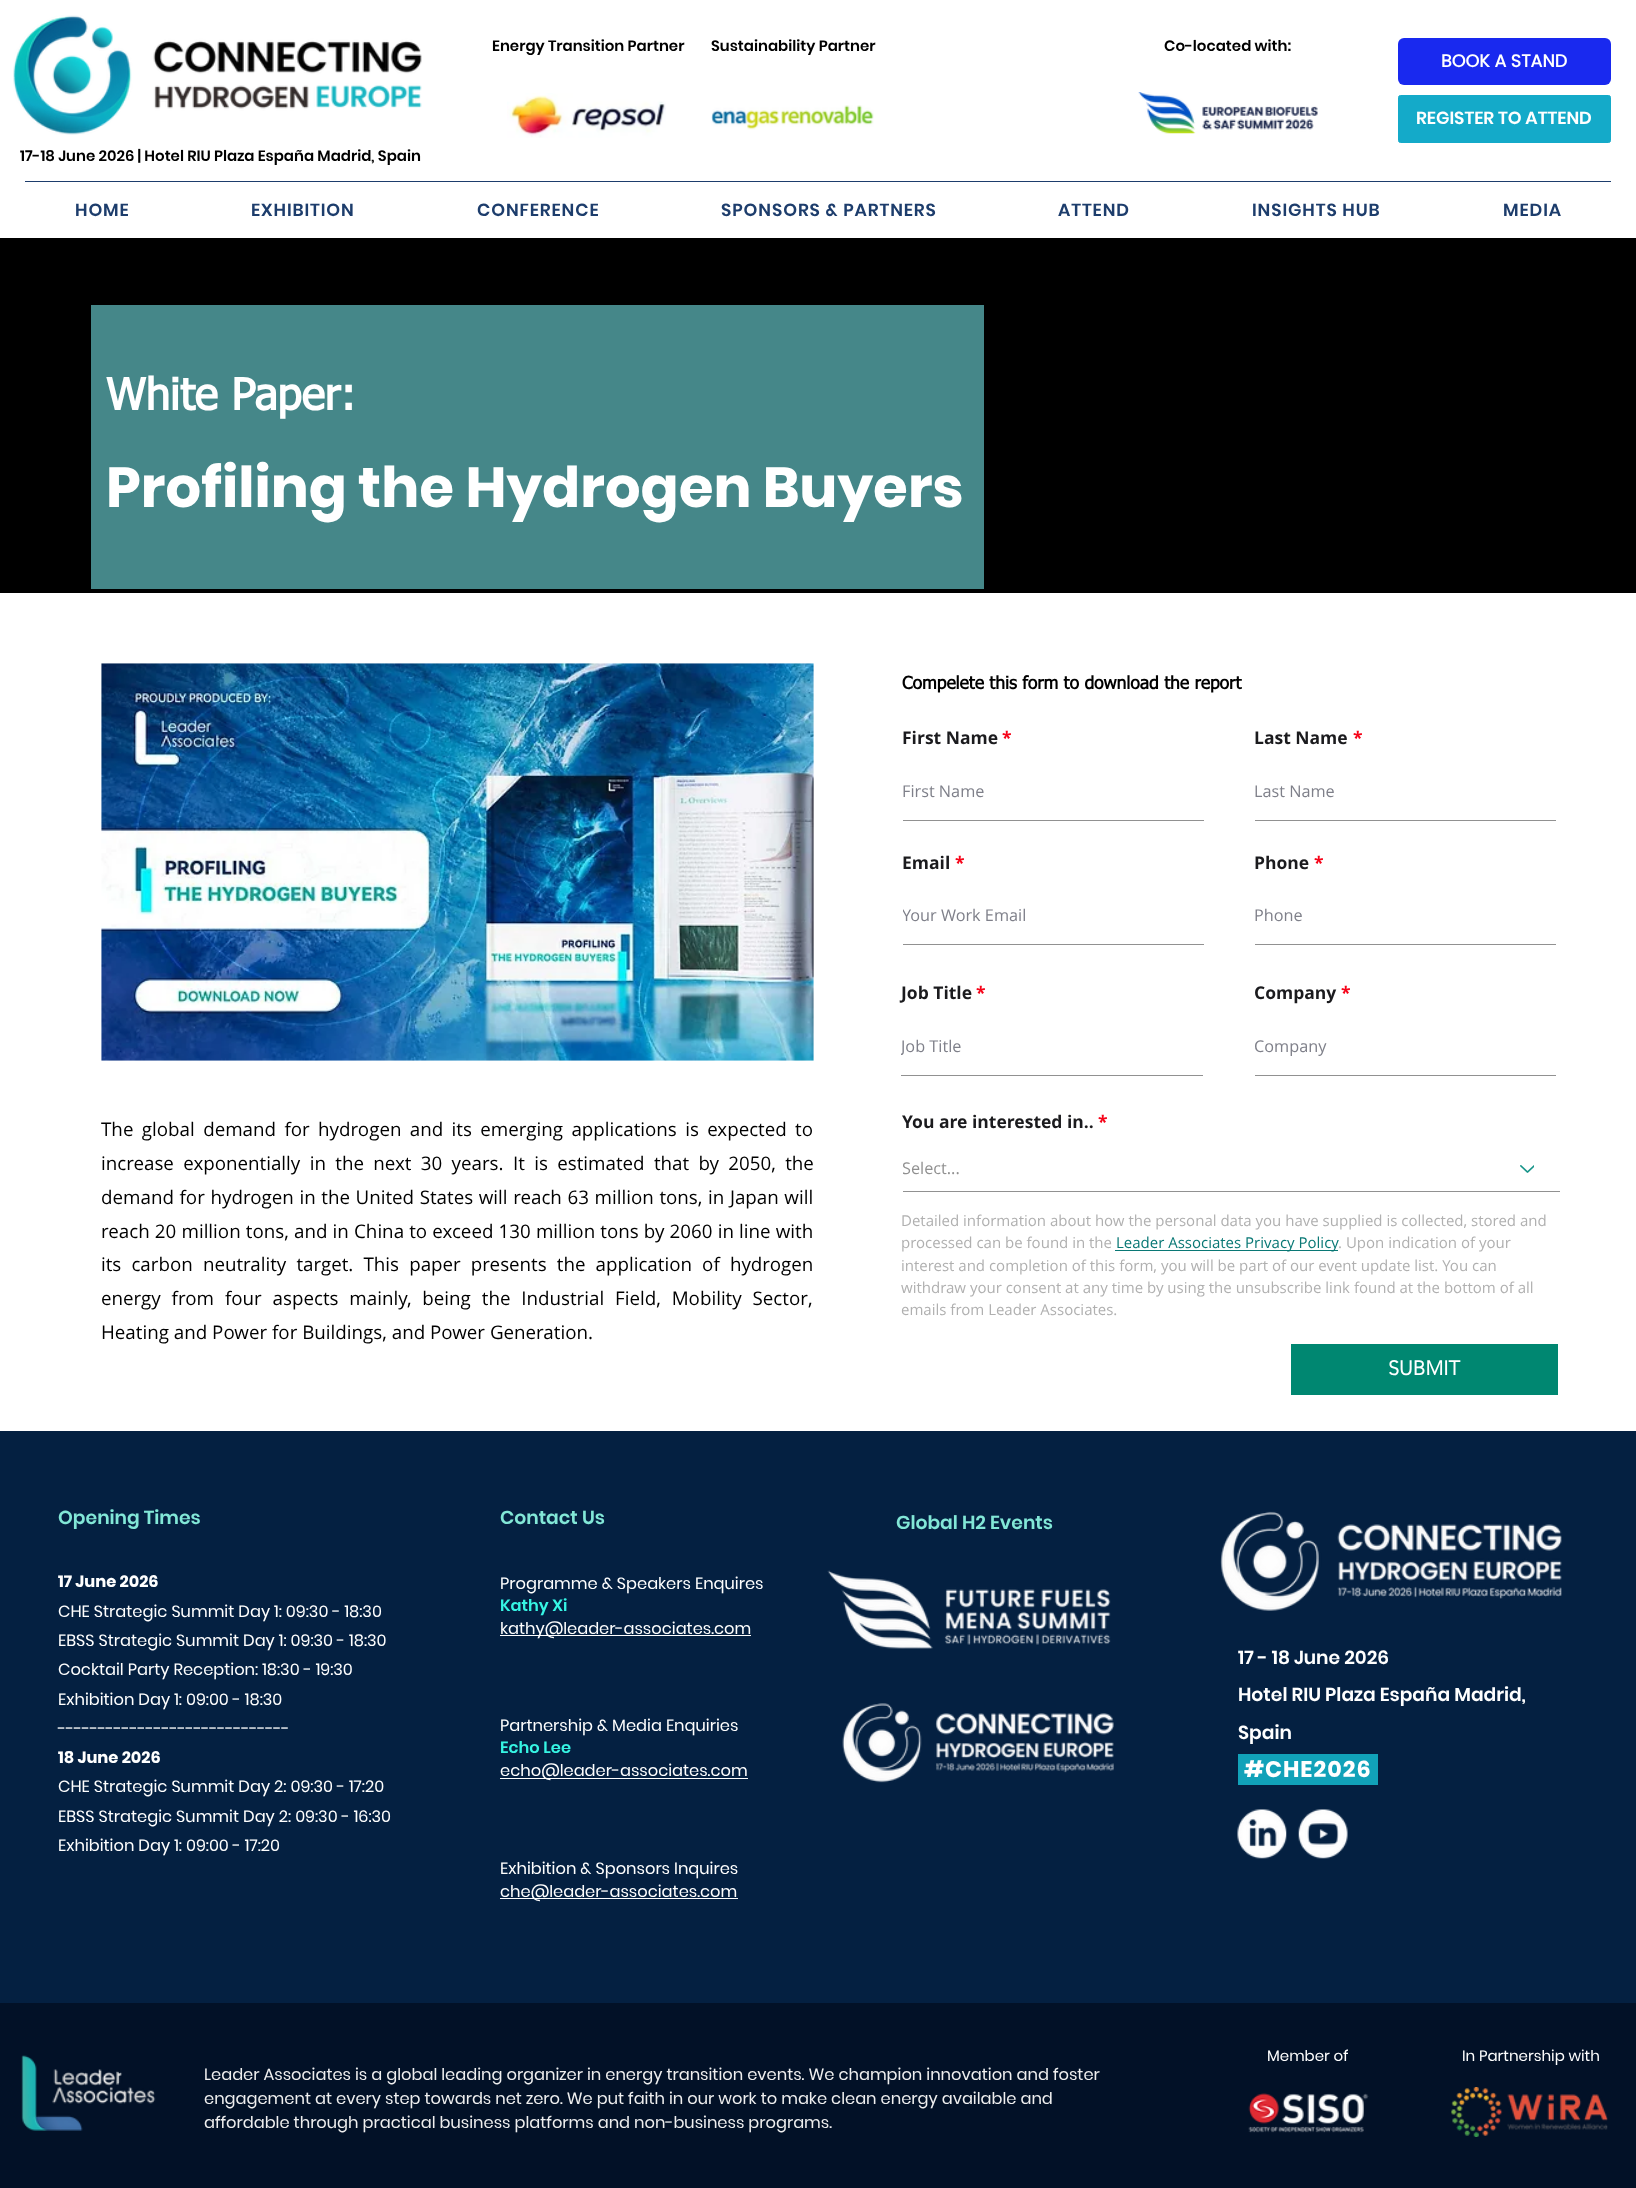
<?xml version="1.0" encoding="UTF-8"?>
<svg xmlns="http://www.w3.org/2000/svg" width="1636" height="2188">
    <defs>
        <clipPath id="clip1"><rect x="903" y="904" width="297" height="22"/></clipPath>
        <clipPath id="clip2"><rect x="901" y="1034" width="298" height="22"/></clipPath>
        <clipPath id="clip3"><rect x="903" y="1156" width="597" height="24"/></clipPath>
    </defs>
    <rect width="100%" height="100%" fill="#FFFFFF"/>
    <text x="492" y="51" font-family="Poppins" font-size="15" font-weight="600" fill="#000000">Energy Transition Partner</text>
    <image x="507" y="93" width="159" height="45" href="img_01.png"/>
    <text x="711" y="51" font-family="Poppins" font-size="15" font-weight="600" fill="#000000">Sustainability Partner</text>
    <image x="711" y="105" width="163" height="25" href="img_02.png"/>
    <text x="1164" y="51" font-family="Poppins" font-size="15" font-weight="600" fill="#000000">Co-located with:</text>
    <image x="1138" y="92" width="180" height="42" href="img_03.png"/>
    <rect x="1398" y="38" width="213" height="47" rx="6" fill="#1929EF"/>
    <text x="1441" y="67" font-family="'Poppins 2'" font-size="17.5" font-weight="700" fill="#FFFFFF">BOOK A STAND</text>
    <rect x="1398.5" y="95.5" width="212" height="47" rx="2" fill="#14AAC9" stroke="#14AAC9"/>
    <text x="1416" y="124" font-family="Poppins" font-size="17.5" font-weight="600" fill="#FFFFFF">REGISTER TO ATTEND</text>
    <image x="13" y="15" width="409" height="120" href="img_04.png"/>
    <text x="20" y="161" font-family="Poppins" font-size="15" font-weight="600" fill="#000000">17-18 June 2026 | Hotel RIU Plaza España Madrid, Spain</text>
    <rect x="25" y="181" width="1586" height="1" fill="#1D3D6C"/>
    <text x="75" y="216" font-family="Poppins" font-size="17.5" font-weight="600" letter-spacing="0.9" fill="#1D3D6C">HOME</text>
    <text x="251" y="216" font-family="Poppins" font-size="17.5" font-weight="600" letter-spacing="0.9" fill="#1D3D6C">EXHIBITION</text>
    <text x="477" y="216" font-family="Poppins" font-size="17.5" font-weight="600" letter-spacing="0.9" fill="#1D3D6C">CONFERENCE</text>
    <text x="721" y="216" font-family="Poppins" font-size="17.5" font-weight="600" letter-spacing="0.9" fill="#1D3D6C">SPONSORS &amp; PARTNERS</text>
    <text x="1058" y="216" font-family="Poppins" font-size="17.5" font-weight="600" letter-spacing="0.9" fill="#1D3D6C">ATTEND</text>
    <text x="1252" y="216" font-family="Poppins" font-size="17.5" font-weight="600" letter-spacing="0.9" fill="#1D3D6C">INSIGHTS HUB</text>
    <text x="1503" y="216" font-family="Poppins" font-size="17.5" font-weight="600" letter-spacing="0.9" fill="#1D3D6C">MEDIA</text>
    <rect x="0" y="238" width="1636" height="355" fill="#000000"/>
    <rect x="91" y="305" width="893" height="284" fill="#458789"/>
    <text x="106" y="410" font-family="tahoma" font-size="43.75" font-weight="700" fill="#FFFFFF">White Paper:</text>
    <text x="106" y="507" font-family="Poppins" font-size="56.25" font-weight="700" fill="#FFFFFF">Profiling the Hydrogen Buyers</text>
    <image x="101" y="663" width="713" height="398" href="img_05.png"/>
    <text x="902" y="689" font-family="tahoma" font-size="17.5" font-weight="700" fill="#000000">Compelete this form to download the report</text>
    <text font-family="Open Sans" font-size="18.75" fill="#000000">
        <tspan x="101" y="1136" word-spacing="3.5">The global demand for hydrogen and its emerging applications is expected to</tspan>
        <tspan x="101" y="1170" word-spacing="4.5">increase exponentially in the next 30 years. It is estimated that by 2050, the</tspan>
        <tspan x="101" y="1204" word-spacing="0.75">demand for hydrogen in the United States will reach 63 million tons, in Japan will</tspan>
        <tspan x="101" y="1238" word-spacing="0.3">reach 20 million tons, and in China to exceed 130 million tons by 2060 in line with</tspan>
        <tspan x="101" y="1271" word-spacing="5.25">its carbon neutrality target. This paper presents the application of hydrogen</tspan>
        <tspan x="101" y="1305" word-spacing="6">energy from four aspects mainly, being the Industrial Field, Mobility Sector,</tspan>
        <tspan x="101" y="1339">Heating and Power for Buildings, and Power Generation.</tspan>
    </text>
    <text x="902" y="744" font-family="Open Sans" font-size="17.5" font-weight="700" fill="#1B1B1E">First Name</text>
    <text x="1002" y="744" font-family="Open Sans" font-size="17.5" font-weight="700" fill="#F60419">*</text>
    <rect x="903" y="820" width="301" height="1" fill="#919191"/>
    <text x="902" y="797" font-family="Open Sans" font-size="16.25" fill="#7F808A">First Name</text>
    <text x="1254" y="744" font-family="Open Sans" font-size="17.5" font-weight="700" fill="#1B1B1E">Last Name</text>
    <text x="1353" y="744" font-family="Open Sans" font-size="17.5" font-weight="700" fill="#F60419">*</text>
    <rect x="1255" y="820" width="301" height="1" fill="#919191"/>
    <text x="1254" y="797" font-family="Open Sans" font-size="16.25" fill="#7F808A">Last Name</text>
    <text x="902" y="869" font-family="Open Sans" font-size="17.5" font-weight="700" fill="#1B1B1E">Email</text>
    <text x="955" y="869" font-family="Open Sans" font-size="17.5" font-weight="700" fill="#F60419">*</text>
    <rect x="903" y="944" width="301" height="1" fill="#919191"/>
    <g clip-path="url(#clip1)">
        <text x="902" y="921" font-family="Open Sans" font-size="16.25" fill="#7F808A">Your Work Email</text>
    </g>
    <text x="1254" y="869" font-family="Open Sans" font-size="17.5" font-weight="700" fill="#1B1B1E">Phone</text>
    <text x="1314" y="869" font-family="Open Sans" font-size="17.5" font-weight="700" fill="#F60419">*</text>
    <rect x="1255" y="944" width="301" height="1" fill="#919191"/>
    <text x="1254" y="921" font-family="Open Sans" font-size="16.25" fill="#7F808A">Phone</text>
    <text x="901" y="999" font-family="Open Sans" font-size="17.5" font-weight="700" fill="#1B1B1E">Job Title</text>
    <text x="976" y="999" font-family="Open Sans" font-size="17.5" font-weight="700" fill="#F60419">*</text>
    <rect x="901" y="1075" width="302" height="1" fill="#919191"/>
    <g clip-path="url(#clip2)">
        <text x="901" y="1052" font-family="Open Sans" font-size="16.25" fill="#7F808A">Job Title</text>
    </g>
    <text x="1254" y="999" font-family="Open Sans" font-size="17.5" font-weight="700" fill="#1B1B1E">Company</text>
    <text x="1341" y="999" font-family="Open Sans" font-size="17.5" font-weight="700" fill="#F60419">*</text>
    <rect x="1255" y="1075" width="301" height="1" fill="#919191"/>
    <text x="1254" y="1052" font-family="Open Sans" font-size="16.25" fill="#7F808A">Company</text>
    <text x="902" y="1128" font-family="Open Sans" font-size="17.5" font-weight="700" fill="#1B1B1E">You are interested in..</text>
    <text x="1098" y="1128" font-family="Open Sans" font-size="17.5" font-weight="700" fill="#F60419">*</text>
    <rect x="903" y="1191" width="657" height="1" fill="#919191"/>
    <g clip-path="url(#clip3)">
        <text x="902" y="1174" font-family="Open Sans" font-size="16.25" fill="#919191">Select...</text>
    </g>
    <image x="1520" y="1165" width="14" height="8" href="img_06.png"/>
    <text font-family="Open Sans" font-size="15" fill="#B0B0B0">
        <tspan x="901" y="1226">Detailed information about how the personal data you have supplied is collected, stored and</tspan>
        <tspan x="901" y="1248">processed can be found in the</tspan>
    </text>
    <rect x="1115" y="1250" width="223" height="1" fill="#097875"/>
    <text x="1116" y="1248" font-family="Open Sans" font-size="15" fill="#097875">Leader Associates Privacy Policy</text>
    <text x="1338" y="1248" font-family="Open Sans" font-size="15" fill="#B0B0B0">. Upon indication of your</text>
    <text font-family="Open Sans" font-size="15" fill="#B0B0B0">
        <tspan x="901" y="1271">interest and completion of this form, you will be part of our event update list. You can</tspan>
        <tspan x="901" y="1293">withdraw your consent at any time by using the unsubscribe link found at the bottom of all</tspan>
        <tspan x="901" y="1315">emails from Leader Associates.</tspan>
    </text>
    <rect x="1291" y="1344" width="267" height="51" fill="#008771"/>
    <text x="1388" y="1375" font-family="'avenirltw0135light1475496'" font-size="20" font-weight="700" fill="#FFFFFF">SUBMIT</text>
    <rect x="0" y="1431" width="1636" height="572" fill="#042041"/>
    <text x="58" y="1524" font-family="Poppins" font-size="18.75" font-weight="600" fill="#82E7D7">Opening Times</text>
    <text x="58" y="1587" font-family="Poppins" font-size="16.25" font-weight="700" fill="#FFFFFF">17 June 2026</text>
    <text font-family="Poppins" font-size="16.25" fill="#FFFFFF">
        <tspan x="58" y="1617">CHE Strategic Summit Day 1: 09:30 - 18:30</tspan>
        <tspan x="58" y="1646">EBSS Strategic Summit Day 1: 09:30 - 18:30</tspan>
        <tspan x="58" y="1675">Cocktail Party Reception: 18:30 - 19:30</tspan>
        <tspan x="58" y="1705">Exhibition Day 1: 09:00 - 18:30</tspan>
        <tspan x="58" y="1734">-----------------------------</tspan>
    </text>
    <text x="58" y="1763" font-family="Poppins" font-size="16.25" font-weight="700" fill="#FFFFFF">18 June 2026</text>
    <text font-family="Poppins" font-size="16.25" fill="#FFFFFF">
        <tspan x="58" y="1792">CHE Strategic Summit Day 2: 09:30 - 17:20</tspan>
        <tspan x="58" y="1822">EBSS Strategic Summit Day 2: 09:30 - 16:30</tspan>
        <tspan x="58" y="1851">Exhibition Day 1: 09:00 - 17:20</tspan>
    </text>
    <text x="500" y="1524" font-family="Poppins" font-size="18.75" font-weight="600" fill="#82E7D7">Contact Us</text>
    <text x="500" y="1589" font-family="Poppins" font-size="16.25" fill="#FFFFFF">Programme &amp; Speakers Enquires</text>
    <text x="500" y="1611" font-family="Poppins" font-size="16.25" font-weight="600" fill="#36F5E4">Kathy Xi</text>
    <rect x="500" y="1635" width="251" height="1" fill="#FFFFFF"/>
    <text x="500" y="1634" font-family="Poppins" font-size="16.25" fill="#FFFFFF">kathy@leader-associates.com</text>
    <text x="500" y="1731" font-family="Poppins" font-size="16.25" fill="#FFFFFF">Partnership &amp; Media Enquiries</text>
    <text x="500" y="1753" font-family="Poppins" font-size="16.25" font-weight="600" fill="#36F5E4">Echo Lee</text>
    <rect x="500" y="1778" width="248" height="1" fill="#FFFFFF"/>
    <text x="500" y="1776" font-family="Poppins" font-size="16.25" fill="#FFFFFF">echo@leader-associates.com</text>
    <text x="500" y="1874" font-family="Poppins" font-size="16.25" fill="#FFFFFF">Exhibition &amp; Sponsors Inquires</text>
    <rect x="500" y="1898" width="238" height="1" fill="#FFFFFF"/>
    <text x="500" y="1897" font-family="Poppins" font-size="16.25" fill="#FFFFFF">che@leader-associates.com</text>
    <text x="896" y="1529" font-family="Poppins" font-size="18.75" font-weight="600" fill="#82E7D7">Global H2 Events</text>
    <image x="827" y="1570" width="284" height="79" href="img_07.png"/>
    <image x="842" y="1703" width="272" height="80" href="img_08.png"/>
    <image x="1220" y="1511" width="342" height="100" href="img_09.png"/>
    <text font-family="Poppins" font-size="18.75" font-weight="600" fill="#FFFFFF">
        <tspan x="1238" y="1664">17 - 18 June 2026</tspan>
        <tspan x="1238" y="1701">Hotel RIU Plaza España Madrid,</tspan>
    </text>
    <text x="1238" y="1739" font-family="Poppins" font-size="18.75" font-weight="600" fill="#FFFFFF">Spain</text>
    <rect x="1238" y="1754" width="140" height="31" fill="#11A2B9"/>
    <text x="1244" y="1777" font-family="Poppins" font-size="22.5" font-weight="700" letter-spacing="1" fill="#FFFFFF">#CHE2026</text>
    <image x="1237" y="1809" width="50" height="50" href="img_10.png"/>
    <image x="1298" y="1809" width="50" height="50" href="img_11.png"/>
    <rect x="0" y="2003" width="1636" height="185" fill="#021127"/>
    <image x="21" y="2055" width="135" height="76" href="img_12.png"/>
    <text font-family="Poppins" font-size="16.25" fill="#EFEFEF">
        <tspan x="204" y="2080">Leader Associates is a global leading organizer in energy transition events. We champion innovation and foster</tspan>
        <tspan x="204" y="2104">engagement at every step towards net zero. We put faith in our work to make clean energy available and</tspan>
        <tspan x="204" y="2128">affordable through practical business platforms and non-business programs.</tspan>
    </text>
    <text x="1267" y="2061" font-family="Poppins" font-size="15" fill="#FFFFFF">Member of</text>
    <text x="1462" y="2061" font-family="Poppins" font-size="15" fill="#FFFFFF">In Partnership with</text>
    <image x="1248" y="2093" width="121" height="40" href="img_13.png"/>
    <image x="1451" y="2087" width="157" height="50" href="img_14.png"/>
</svg>
